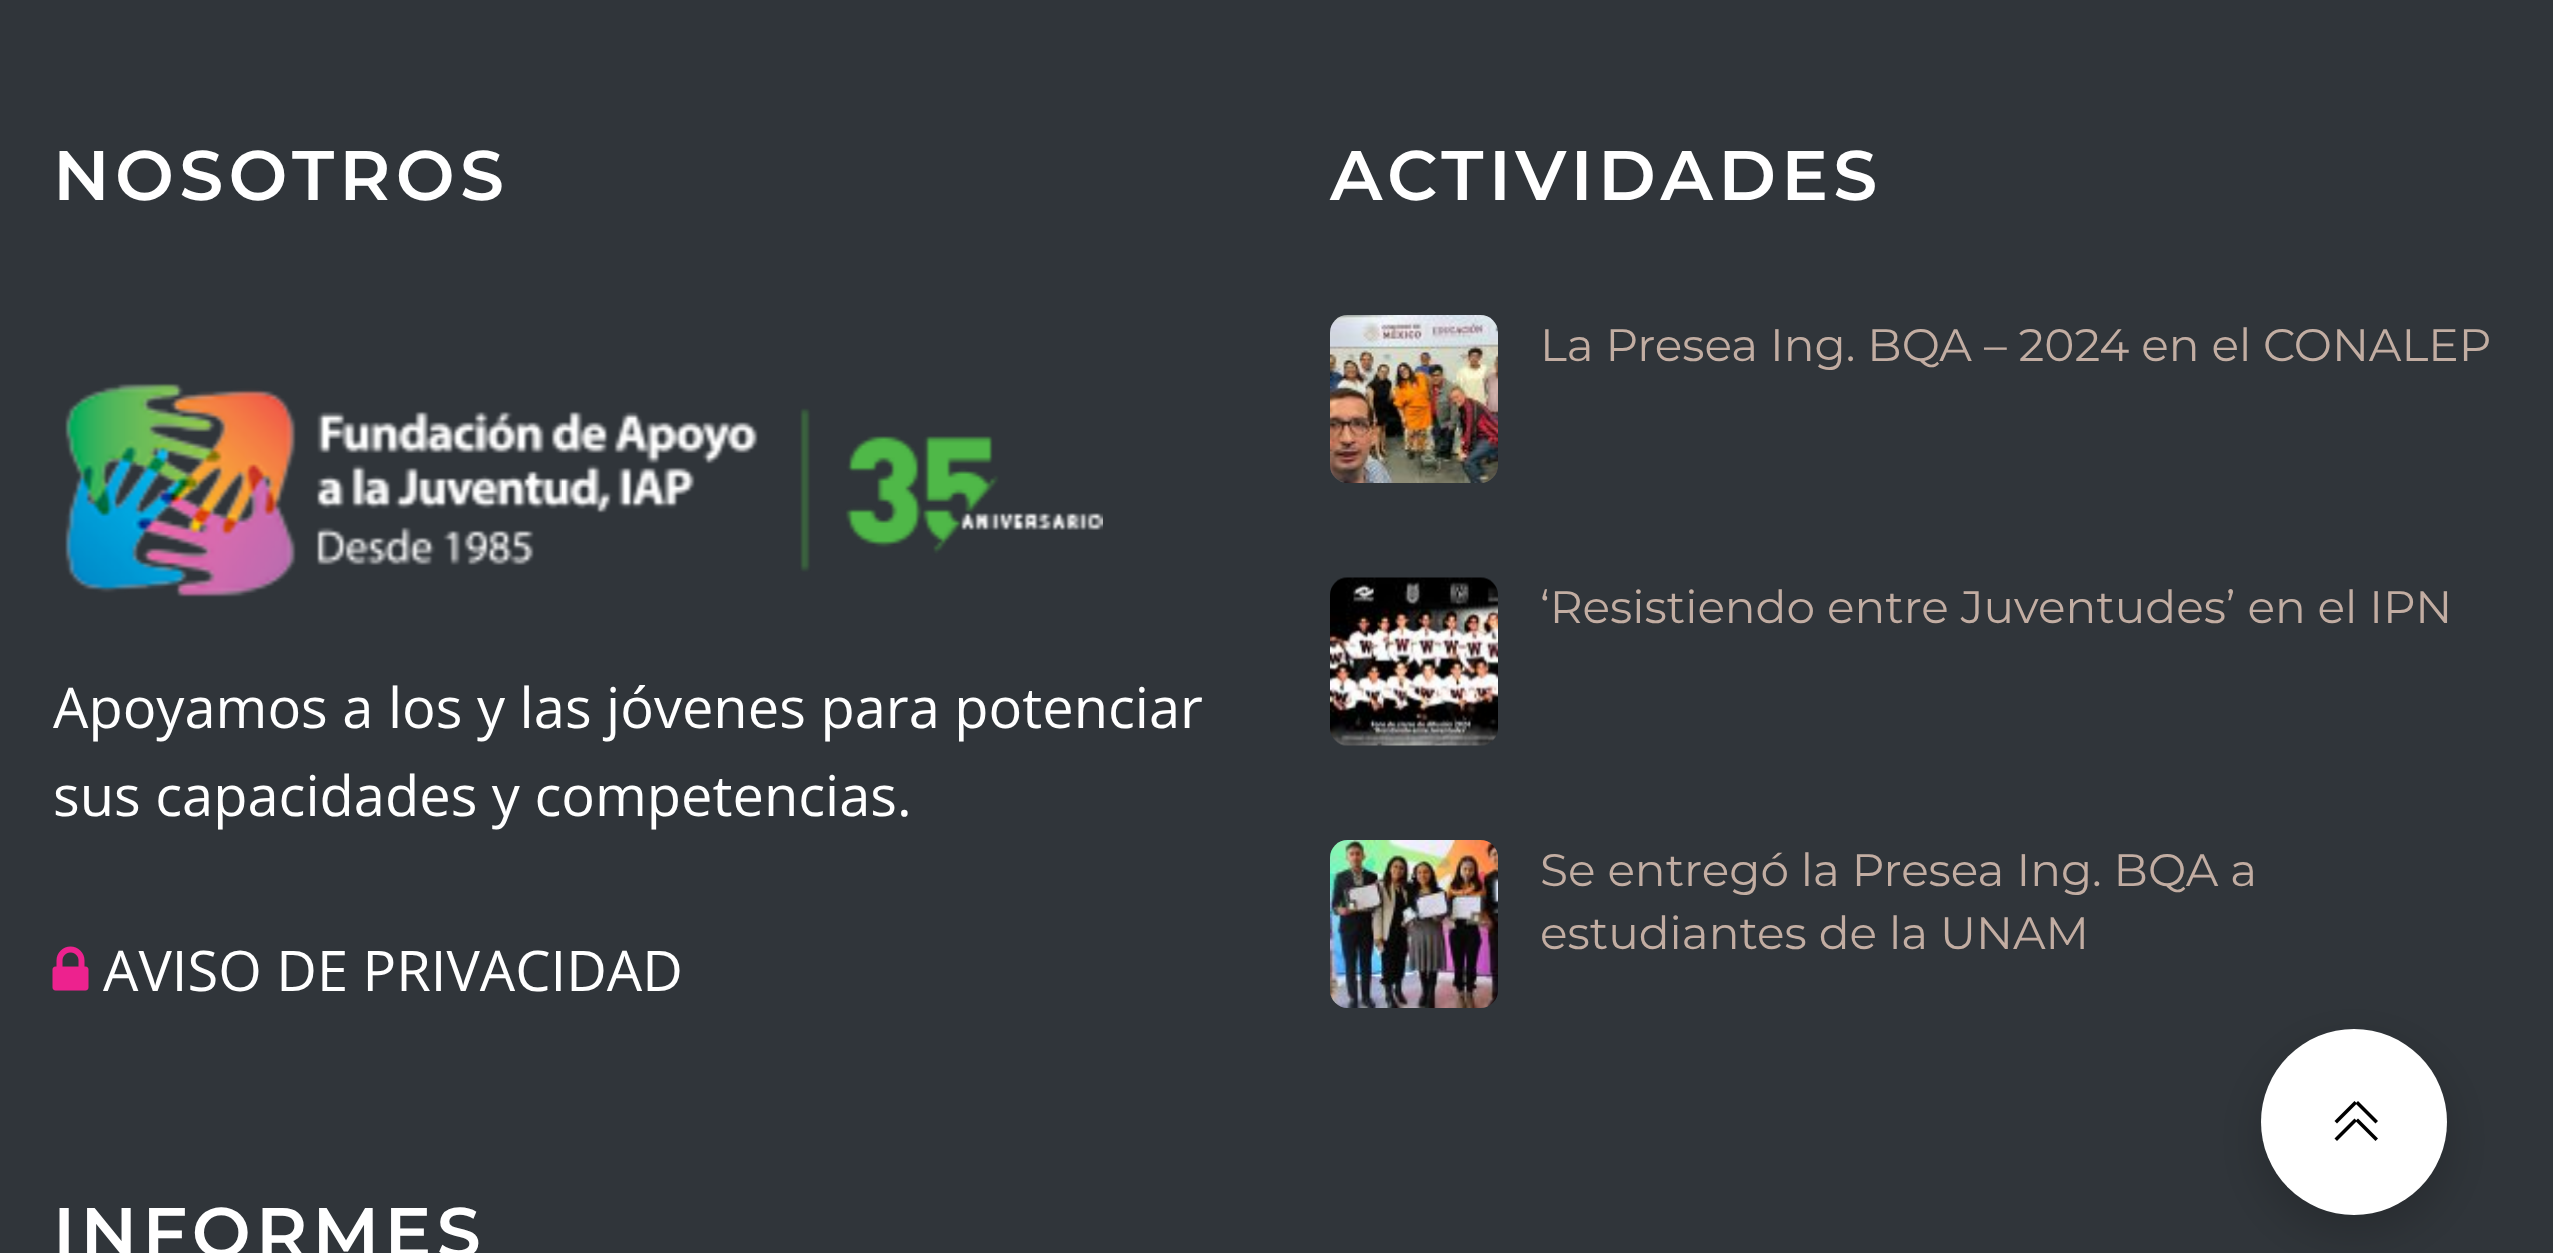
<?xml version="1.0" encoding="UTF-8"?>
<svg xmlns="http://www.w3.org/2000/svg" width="2553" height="1253">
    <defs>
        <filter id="blur1" x="-50%" y="-200%" width="200%" height="500%"><feGaussianBlur stdDeviation="26"/></filter>
    </defs>
    <rect width="100%" height="100%" fill="#30353A"/>
    <text x="53" y="200" font-family="Montserrat" font-size="70" font-weight="600" letter-spacing="5.25" fill="#FFFFFF">NOSOTROS</text>
    <image x="65" y="383" width="1038" height="214" href="img_01.png"/>
    <text font-family="Open Sans" font-size="56" fill="#FFFFFF">
        <tspan x="53" y="728">Apoyamos a los y las jóvenes para potenciar</tspan>
        <tspan x="53" y="816">sus capacidades y competencias.</tspan>
    </text>
    <image x="52" y="946" width="37" height="45" href="img_02.png"/>
    <text x="103" y="991" font-family="Open Sans" font-size="56" fill="#FFFFFF">AVISO DE PRIVACIDAD</text>
    <text x="1330" y="200" font-family="Montserrat" font-size="70" font-weight="600" letter-spacing="5.25" fill="#FFFFFF">ACTIVIDADES</text>
    <image x="1330" y="315" width="168" height="168" href="img_03.png"/>
    <text x="1540" y="361" font-family="Montserrat" font-size="45.5" fill="#C2ADA2">La Presea Ing. BQA – 2024 en el CONALEP</text>
    <image x="1330" y="577" width="168" height="169" href="img_04.png"/>
    <text x="1540" y="623" font-family="Montserrat" font-size="45.5" fill="#C2ADA2">‘Resistiendo entre Juventudes’ en el IPN</text>
    <image x="1330" y="840" width="168" height="168" href="img_05.png"/>
    <text font-family="Montserrat" font-size="45.5" fill="#C2ADA2">
        <tspan x="1540" y="886">Se entregó la Presea Ing. BQA a</tspan>
        <tspan x="1540" y="949">estudiantes de la UNAM</tspan>
    </text>
    <text x="53" y="1257" font-family="Montserrat" font-size="70" font-weight="600" letter-spacing="5.25" fill="#FFFFFF">INFORMES</text>
    <rect x="2261" y="1047" width="186" height="185" rx="92.5" fill="#000000" fill-opacity="0.2" filter="url(#blur1)"/>
    <circle cx="2354" cy="1122" r="93" fill="#FFFFFF"/>
    <path d="M 2334.5 1121 L 2354.5 1101 L 2357 1103.5 L 2337 1123.5 Z" fill="#000000"/>
    <path d="M 2334.5 1138.5 L 2354.5 1118.5 L 2357 1121 L 2337 1141 Z" fill="#000000"/>
    <path d="M 2358 1118.5 L 2378 1138.5 L 2375.5 1141 L 2355.5 1121 Z" fill="#000000"/>
    <path d="M 2358 1101 L 2378 1121 L 2375.5 1123.5 L 2355.5 1103.5 Z" fill="#000000"/>
</svg>
